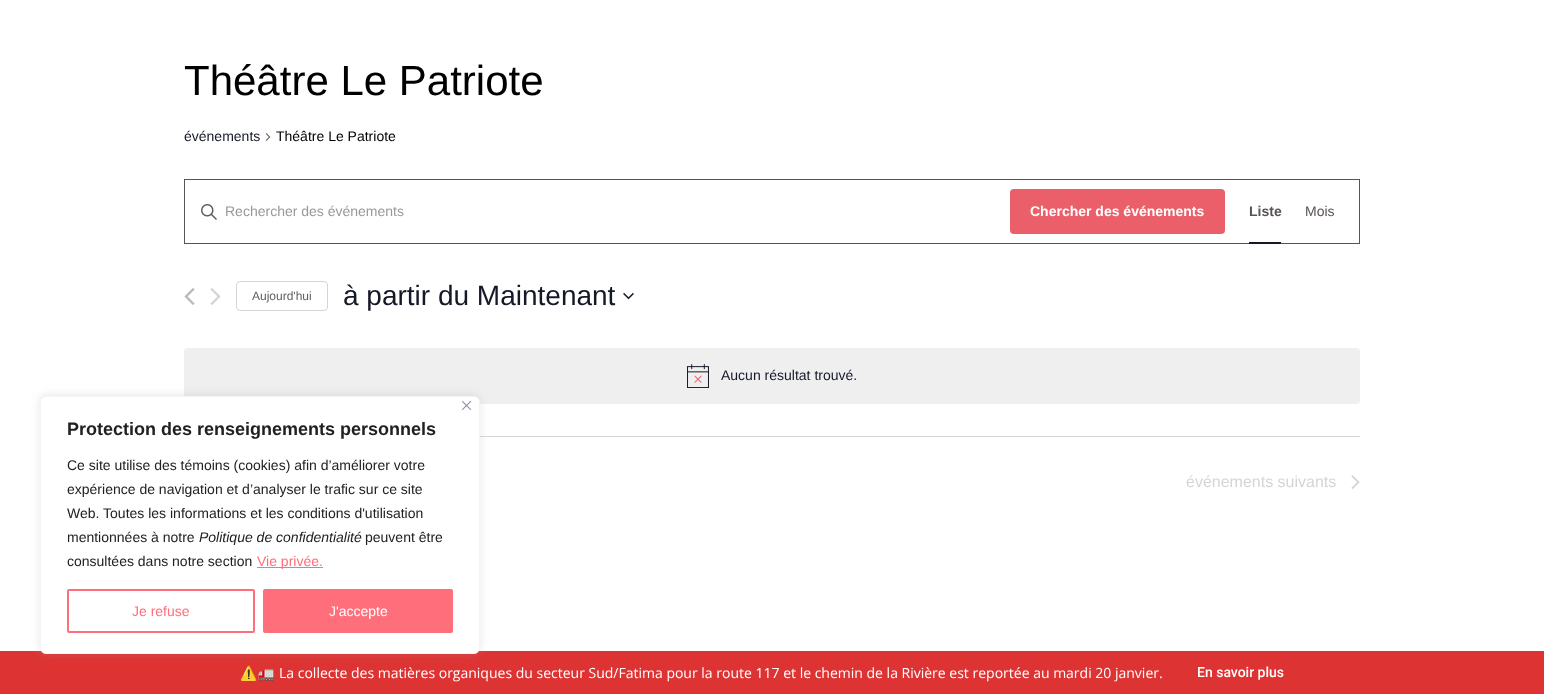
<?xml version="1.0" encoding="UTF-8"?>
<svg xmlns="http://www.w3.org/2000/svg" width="1544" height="694">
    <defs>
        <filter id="blur1" x="-50%" y="-200%" width="200%" height="500%"><feGaussianBlur stdDeviation="5"/></filter>
    </defs>
    <rect width="100%" height="100%" fill="#FFFFFF"/>
    <text x="184" y="95" font-family="Liberation Sans" font-size="42" fill="#000000">Théâtre Le Patriote</text>
    <text x="184" y="141" font-family="Liberation Sans" font-size="14" fill="#141827">événements</text>
    <image x="265" y="133" width="6" height="8" href="img_01.png"/>
    <text x="276" y="141" font-family="Liberation Sans" font-size="14" fill="#000000">Théâtre Le Patriote</text>
    <rect x="184.5" y="179.5" width="1175" height="64" fill="none" stroke="#595353"/>
    <image x="201" y="204" width="16" height="16" href="img_02.png"/>
    <text x="225" y="216" font-family="Liberation Sans" font-size="14" fill="#9B9898">Rechercher des événements</text>
    <rect x="1010" y="189" width="215" height="45" rx="4" fill="#EA5F69"/>
    <text x="1030" y="216" font-family="Liberation Sans" font-size="14" font-weight="700" fill="#FFFFFF">Chercher des événements</text>
    <text x="1249" y="216" font-family="Liberation Sans" font-size="14" font-weight="700" fill="#595353">Liste</text>
    <rect x="1249" y="242" width="32" height="2" fill="#141827"/>
    <text x="1305" y="216" font-family="Liberation Sans" font-size="14" fill="#595353">Mois</text>
    <image x="184" y="288" width="11" height="17" href="img_03.png"/>
    <image x="210" y="288" width="11" height="17" href="img_04.png"/>
    <rect x="236.5" y="281.5" width="91" height="29" rx="3.5" fill="none" stroke="#D5D5D5"/>
    <text x="252" y="300" font-family="Liberation Sans" font-size="12" fill="#5D5D5D">Aujourd'hui</text>
    <text x="343" y="305" font-family="Liberation Sans" font-size="28" fill="#141827">à partir du Maintenant</text>
    <image x="623" y="292" width="11" height="8" href="img_05.png"/>
    <rect x="184" y="348" width="1176" height="56" rx="4" fill="#EFEFF0"/>
    <image x="687" y="364" width="22" height="24" href="img_06.png"/>
    <text x="721" y="380" font-family="Liberation Sans" font-size="14" fill="#141827">Aucun résultat trouvé.</text>
    <rect x="480" y="436" width="880" height="1" fill="#D5D5D5"/>
    <text x="1186" y="487" font-family="Liberation Sans" font-size="16" fill="#D5D5D5">événements suivants</text>
    <image x="1351" y="475" width="9" height="14" href="img_07.png"/>
    <rect x="0" y="651" width="1544" height="43" fill="#DD3333"/>
    <rect x="40" y="395" width="440" height="258" rx="6" fill="#ACABAB" fill-opacity="0.3" filter="url(#blur1)"/>
    <rect x="40.5" y="396.5" width="439" height="257" rx="5.5" fill="#FFFFFF" stroke="#F4F4F4"/>
    <image x="462" y="401" width="9" height="9" href="img_08.png"/>
    <text x="67" y="435" font-family="Liberation Sans" font-size="18" font-weight="700" fill="#212121">Protection des renseignements personnels</text>
    <text font-family="Liberation Sans" font-size="14" fill="#212121">
        <tspan x="67" y="470">Ce site utilise des témoins (cookies) afin d’améliorer votre</tspan>
        <tspan x="67" y="494">expérience de navigation et d’analyser le trafic sur ce site</tspan>
        <tspan x="67" y="518">Web. Toutes les informations et les conditions d'utilisation</tspan>
        <tspan x="67" y="542">mentionnées à notre</tspan>
    </text>
    <text x="199" y="542" font-family="Liberation Sans" font-size="14" font-style="italic" fill="#212121">Politique de confidentialité</text>
    <text x="365" y="542" font-family="Liberation Sans" font-size="14" fill="#212121">peuvent être</text>
    <text x="67" y="566" font-family="Liberation Sans" font-size="14" fill="#212121">consultées dans notre section</text>
    <rect x="257" y="567" width="66" height="1" fill="#FF6F7B"/>
    <text x="257" y="566" font-family="Liberation Sans" font-size="14" fill="#FF6F7B">Vie privée.</text>
    <rect x="68" y="590" width="186" height="42" rx="1" fill="none" stroke="#FF6F7B" stroke-width="2"/>
    <text x="132" y="616" font-family="Liberation Sans" font-size="14" fill="#FF6F7B">Je refuse</text>
    <rect x="264" y="590" width="188" height="42" rx="1" fill="#FF6F7B" stroke="#FF6F7B" stroke-width="2"/>
    <text x="329" y="616" font-family="Liberation Sans" font-size="14" fill="#FFFFFF">J'accepte</text>
    <text x="240" y="678" font-family="Noto Color Emoji" font-size="14" fill="#FFFFFF">⚠️🚛</text>
    <text x="279" y="678" font-family="Open Sans" font-size="14" fill="#FFFFFF">La collecte des matières organiques du secteur Sud/Fatima pour la route 117 et le chemin de la Rivière est reportée au mardi 20 janvier.</text>
    <text x="1197" y="677" font-family="Roboto" font-size="14" font-weight="500" fill="#FFFFFF">En savoir plus</text>
</svg>
